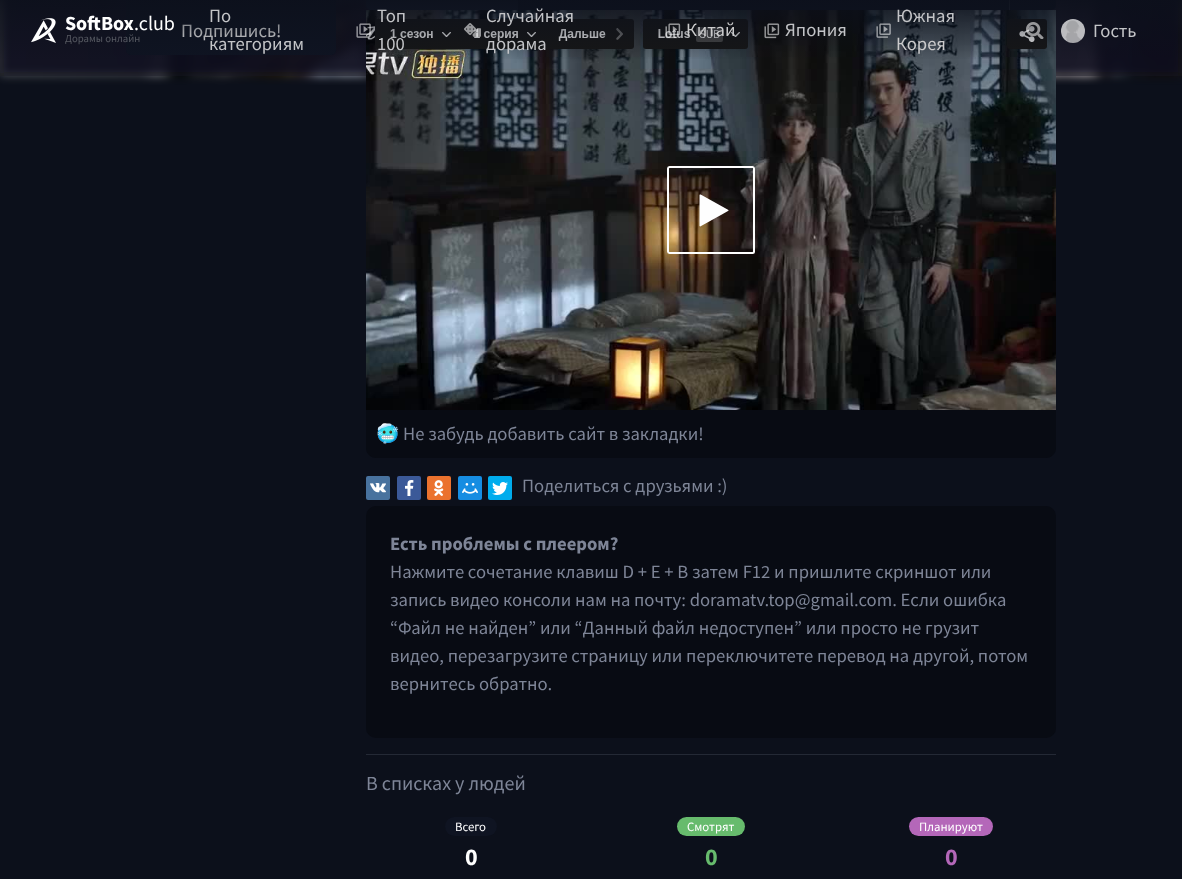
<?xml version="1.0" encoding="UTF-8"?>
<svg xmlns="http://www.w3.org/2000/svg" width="1182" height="879">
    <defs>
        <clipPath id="clip1"><rect x="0" y="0" width="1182" height="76"/></clipPath>
        <filter id="blur1" x="-50%" y="-200%" width="200%" height="500%"><feGaussianBlur stdDeviation="5"/></filter>
        <linearGradient id="g1" gradientUnits="userSpaceOnUse" x1="591" y1="61" x2="591" y2="-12"><stop offset="0" stop-color="#0C101B" stop-opacity="0"/><stop offset="1" stop-color="#0C101B"/></linearGradient>
    </defs>
    <rect width="100%" height="100%" fill="#0C101B"/>
    <image x="0" y="0" width="1182" height="85" href="img_09.png"/>
    <g clip-path="url(#clip1)">
        <rect x="0" y="-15" width="1182" height="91" fill="#0C101B" fill-opacity="0.91" filter="url(#blur1)"/>
    </g>
    <path d="M 126 -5 H 336 V 50 C 336 53 334 55 331 55 H 131 C 128 55 126 53 126 50 Z" fill="#0F1422"/>
    <text x="181" y="37" font-family="Source Sans Pro" font-size="18.65" fill="#FFFFFF">Подпишись!</text>
    <rect x="366" y="-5" width="690" height="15" rx="5" fill="#0F1422"/>
    <path d="M 371 -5 H 518 V 10 H 371 C 368 10 366 8 366 5 V 0 C 366 -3 368 -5 371 -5 Z" fill="#161C2C"/>
    <rect x="1009" y="0" width="1" height="10" fill="#272C38"/>
    <image x="366" y="10" width="690" height="400" href="img_10.png"/>
    <rect x="0" y="0" width="1182" height="59" fill="url(#g1)"/>
    <image x="31" y="18" width="25" height="25" href="img_01.png"/>
    <text x="65" y="30" font-family="Source Sans Pro" font-size="20" font-weight="700" fill="#FFFFFF">SoftBox</text>
    <text x="134" y="30" font-family="Source Sans Pro" font-size="20" fill="#FFFFFF">.club</text>
    <text x="65" y="42" font-family="Source Sans Pro" font-size="10.75" fill="#575A62">Дорамы онлайн</text>
    <text font-family="Source Sans Pro" font-size="18.65" fill="#C3C4C7">
        <tspan x="209" y="22">По</tspan>
        <tspan x="209" y="50">категориям</tspan>
    </text>
    <image x="356" y="23" width="15" height="15" href="img_02.png"/>
    <text font-family="Source Sans Pro" font-size="18.65" fill="#C3C4C7">
        <tspan x="377" y="22">Топ</tspan>
        <tspan x="377" y="50">100</tspan>
    </text>
    <text x="486" y="22" font-family="Source Sans Pro" font-size="18.65" fill="#C3C4C7">Случайная</text>
    <image x="464" y="23" width="17" height="14" href="img_03.png"/>
    <text x="486" y="50" font-family="Source Sans Pro" font-size="18.65" fill="#C3C4C7">дорама</text>
    <image x="665" y="23" width="16" height="16" href="img_04.png"/>
    <text x="686" y="36" font-family="Source Sans Pro" font-size="18.65" fill="#CBCBCC">Китай</text>
    <image x="764" y="23" width="16" height="16" href="img_05.png"/>
    <text x="785" y="36" font-family="Source Sans Pro" font-size="18.65" fill="#C3C4C7">Япония</text>
    <image x="876" y="23" width="15" height="15" href="img_06.png"/>
    <text x="896" y="22" font-family="Source Sans Pro" font-size="18.65" fill="#C3C4C7">Южная</text>
    <text x="896" y="50" font-family="Source Sans Pro" font-size="18.65" fill="#CBCBCC">Корея</text>
    <image x="1026" y="22" width="18" height="17" href="img_07.png"/>
    <image x="1061" y="19" width="24" height="24" href="img_08.png"/>
    <text x="1093" y="37" font-family="Source Sans Pro" font-size="18.65" fill="#C3C4C7">Гость</text>
    <path d="M 366 410 H 1056 V 448 C 1056 453.5 1051.5 458 1046 458 H 376 C 370.5 458 366 453.5 366 448 Z" fill="#080B13"/>
    <text x="376" y="440" font-family="Noto Color Emoji" font-size="18.65" fill="#7E8597">🥶</text>
    <text x="403" y="440" font-family="Source Sans Pro" font-size="18.65" fill="#7E8597">Не забудь добавить сайт в закладки!</text>
    <rect x="366" y="476" width="24" height="24" rx="2" fill="#48729E"/>
    <image x="370" y="483" width="16" height="10" href="img_11.png"/>
    <rect x="397" y="476" width="24" height="24" rx="2" fill="#3B5998"/>
    <image x="405" y="480" width="9" height="16" href="img_12.png"/>
    <rect x="427" y="476" width="24" height="24" rx="2" fill="#EB722E"/>
    <image x="434" y="480" width="10" height="16" href="img_13.png"/>
    <rect x="458" y="476" width="24" height="24" rx="2" fill="#168DE2"/>
    <image x="462" y="483" width="16" height="11" href="img_14.png"/>
    <rect x="488" y="476" width="24" height="24" rx="2" fill="#00ACED"/>
    <image x="492" y="482" width="16" height="13" href="img_15.png"/>
    <text x="522" y="492" font-family="Source Sans Pro" font-size="18.65" fill="#7E8597">Поделиться с друзьями :)</text>
    <rect x="366" y="506" width="690" height="232" rx="10" fill="#080B13"/>
    <text x="390" y="550" font-family="Source Sans Pro" font-size="18.65" font-weight="700" fill="#7E8597">Есть проблемы с плеером?</text>
    <text font-family="Source Sans Pro" font-size="18.65" fill="#7E8597">
        <tspan x="390" y="578">Нажмите сочетание клавиш D + E + B затем F12 и пришлите скриншот или</tspan>
        <tspan x="390" y="606">запись видео консоли нам на почту: doramatv.top@gmail.com. Если ошибка</tspan>
        <tspan x="390" y="634">“Файл не найден” или “Данный файл недоступен” или просто не грузит</tspan>
        <tspan x="390" y="662">видео, перезагрузите страницу или переключитете перевод на другой, потом</tspan>
        <tspan x="390" y="690">вернитесь обратно.</tspan>
    </text>
    <rect x="366" y="754" width="690" height="1" fill="#242935"/>
    <text x="366" y="790" font-family="Source Sans Pro" font-size="20" fill="#7E8597">В списках у людей</text>
    <rect x="445" y="817" width="52" height="19" rx="9.5" fill="#0F1422"/>
    <text x="455" y="831" font-family="Source Sans Pro" font-size="12.75" fill="#FFFFFF">Всего</text>
    <text x="465" y="865" font-family="Source Sans Pro" font-size="24" font-weight="700" fill="#FFFFFF">0</text>
    <rect x="677" y="817" width="68" height="19" rx="9.5" fill="#67BB6D"/>
    <text x="687" y="831" font-family="Source Sans Pro" font-size="12.75" fill="#FFFFFF">Смотрят</text>
    <text x="705" y="865" font-family="Source Sans Pro" font-size="24" font-weight="700" fill="#67BB6D">0</text>
    <rect x="909" y="817" width="84" height="19" rx="9.5" fill="#B467B9"/>
    <text x="919" y="831" font-family="Source Sans Pro" font-size="12.75" fill="#FFFFFF">Планируют</text>
    <text x="945" y="865" font-family="Source Sans Pro" font-size="24" font-weight="700" fill="#B467B9">0</text>
</svg>
